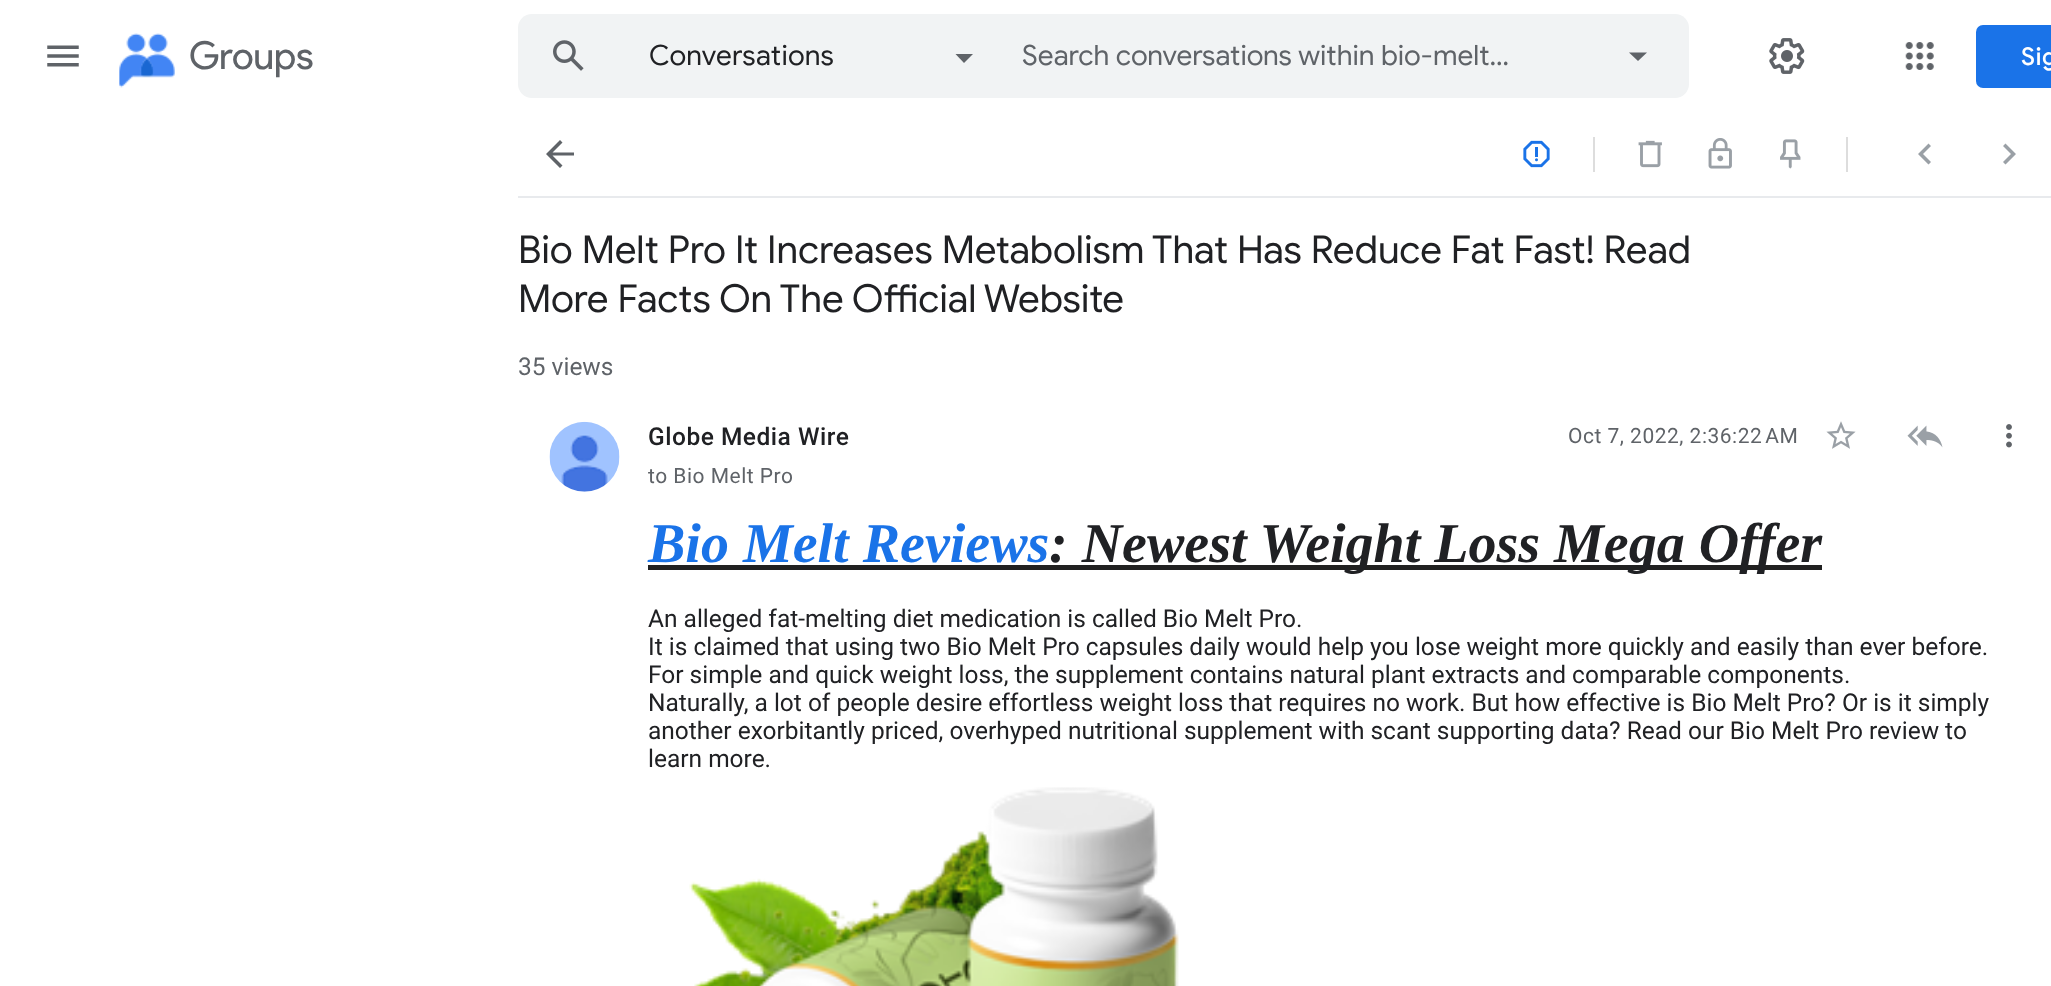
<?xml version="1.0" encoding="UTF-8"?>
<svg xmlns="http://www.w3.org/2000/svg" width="2051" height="986">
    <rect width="100%" height="100%" fill="#FFFFFF"/>
    <image x="47" y="45" width="32" height="22" href="img_01.png"/>
    <image x="119" y="33" width="56" height="55" href="img_02.png"/>
    <text x="189" y="69" font-family="Product Sans" font-size="38.5" fill="#5F6368">Groups</text>
    <rect x="518" y="14" width="1171" height="84" rx="14" fill="#F1F3F4"/>
    <image x="553" y="40" width="31" height="31" href="img_03.png"/>
    <text x="649" y="65" font-family="Google Sans" font-size="28" letter-spacing="0.3" fill="#202124">Conversations</text>
    <path d="M 955.5 54 H 973 L 964 63 Z" fill="#5F6368"/>
    <text x="1022" y="65" font-family="Google Sans" font-size="28" fill="#5F6368">Search conversations within bio-melt…</text>
    <path d="M 1629 52.5 L 1638 61 L 1647 52.5 Z" fill="#5F6368"/>
    <image x="1769" y="38" width="36" height="36" href="img_04.png"/>
    <image x="1905" y="42" width="29" height="28" href="img_05.png"/>
    <rect x="1976" y="25" width="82" height="63" rx="7" fill="#1A73E8"/>
    <text x="2021" y="65" font-family="Google Sans" font-size="24.5" font-weight="500" letter-spacing="0.5" fill="#FFFFFF">Sig</text>
    <rect x="518" y="196" width="1533" height="2" fill="#E8EAED"/>
    <path d="M 574 152.5 V 155.5 H 552.5 L 562.5 165.5 L 560 168 L 546 154 L 560 140 L 562.5 142.5 L 552.5 152.5 Z" fill="#5F6368"/>
    <image x="1523" y="140" width="27" height="28" href="img_06.png"/>
    <rect x="1593" y="137" width="2" height="35" fill="#DDDDDD"/>
    <image x="1638" y="140" width="24" height="28" href="img_07.png"/>
    <image x="1708" y="138" width="24" height="31" href="img_08.png"/>
    <image x="1780" y="139" width="21" height="30" href="img_09.png"/>
    <rect x="1846" y="137" width="2" height="35" fill="#DDDDDD"/>
    <path d="M 1931 146 L 1923 154 L 1931 162 L 1928.5 164.5 L 1918 154 L 1928.5 143.5 Z" fill="#9AA0A6"/>
    <path d="M 2005.5 143.5 L 2016 154 L 2005.5 164.5 L 2003 162 L 2011 154 L 2003 146 Z" fill="#9AA0A6"/>
    <text font-family="Google Sans" font-size="38.5" fill="#202124">
        <tspan x="518" y="263">Bio Melt Pro It Increases Metabolism That Has Reduce Fat Fast! Read</tspan>
        <tspan x="518" y="312">More Facts On The Official Website</tspan>
    </text>
    <text x="518" y="375" font-family="Roboto" font-size="24.5" fill="#5F6368">35 views</text>
    <image x="549" y="421" width="71" height="71" href="img_10.png"/>
    <text x="648" y="445" font-family="Roboto" font-size="24.5" font-weight="500" letter-spacing="0.5" fill="#202124">Globe Media Wire</text>
    <text x="1568" y="443" font-family="Roboto" font-size="21" letter-spacing="0.5" fill="#5F6368">Oct 7, 2022, 2:36:22 AM</text>
    <image x="1826" y="421" width="30" height="28" href="img_11.png"/>
    <image x="1907" y="425" width="36" height="23" href="img_12.png"/>
    <image x="2006" y="424" width="6" height="24" href="img_13.png"/>
    <text x="648" y="483" font-family="Roboto" font-size="21" letter-spacing="0.5" fill="#5F6368">to Bio Melt Pro</text>
    <text x="648" y="562" font-family="Liberation Serif" font-size="56" font-weight="700" font-style="italic" fill="#1A73E8">Bio Melt Reviews</text>
    <rect x="648" y="565" width="1174" height="5" fill="#212121"/>
    <text x="1049" y="562" font-family="Liberation Serif" font-size="56" font-weight="700" font-style="italic" fill="#202124">: Newest Weight Loss Mega Offer</text>
    <text font-family="Roboto" font-size="24.5" fill="#202124">
        <tspan x="648" y="627">An alleged fat-melting diet medication is called Bio Melt Pro.</tspan>
        <tspan x="648" y="655">It is claimed that using two Bio Melt Pro capsules daily would help you lose weight more quickly and easily than ever before.</tspan>
        <tspan x="648" y="683">For simple and quick weight loss, the supplement contains natural plant extracts and comparable components.</tspan>
        <tspan x="648" y="711">Naturally, a lot of people desire effortless weight loss that requires no work. But how effective is Bio Melt Pro? Or is it simply</tspan>
        <tspan x="648" y="739">another exorbitantly priced, overhyped nutritional supplement with scant supporting data? Read our Bio Melt Pro review to</tspan>
        <tspan x="648" y="767">learn more.</tspan>
    </text>
    <image x="689" y="787" width="490" height="199" href="img_14.png"/>
</svg>
